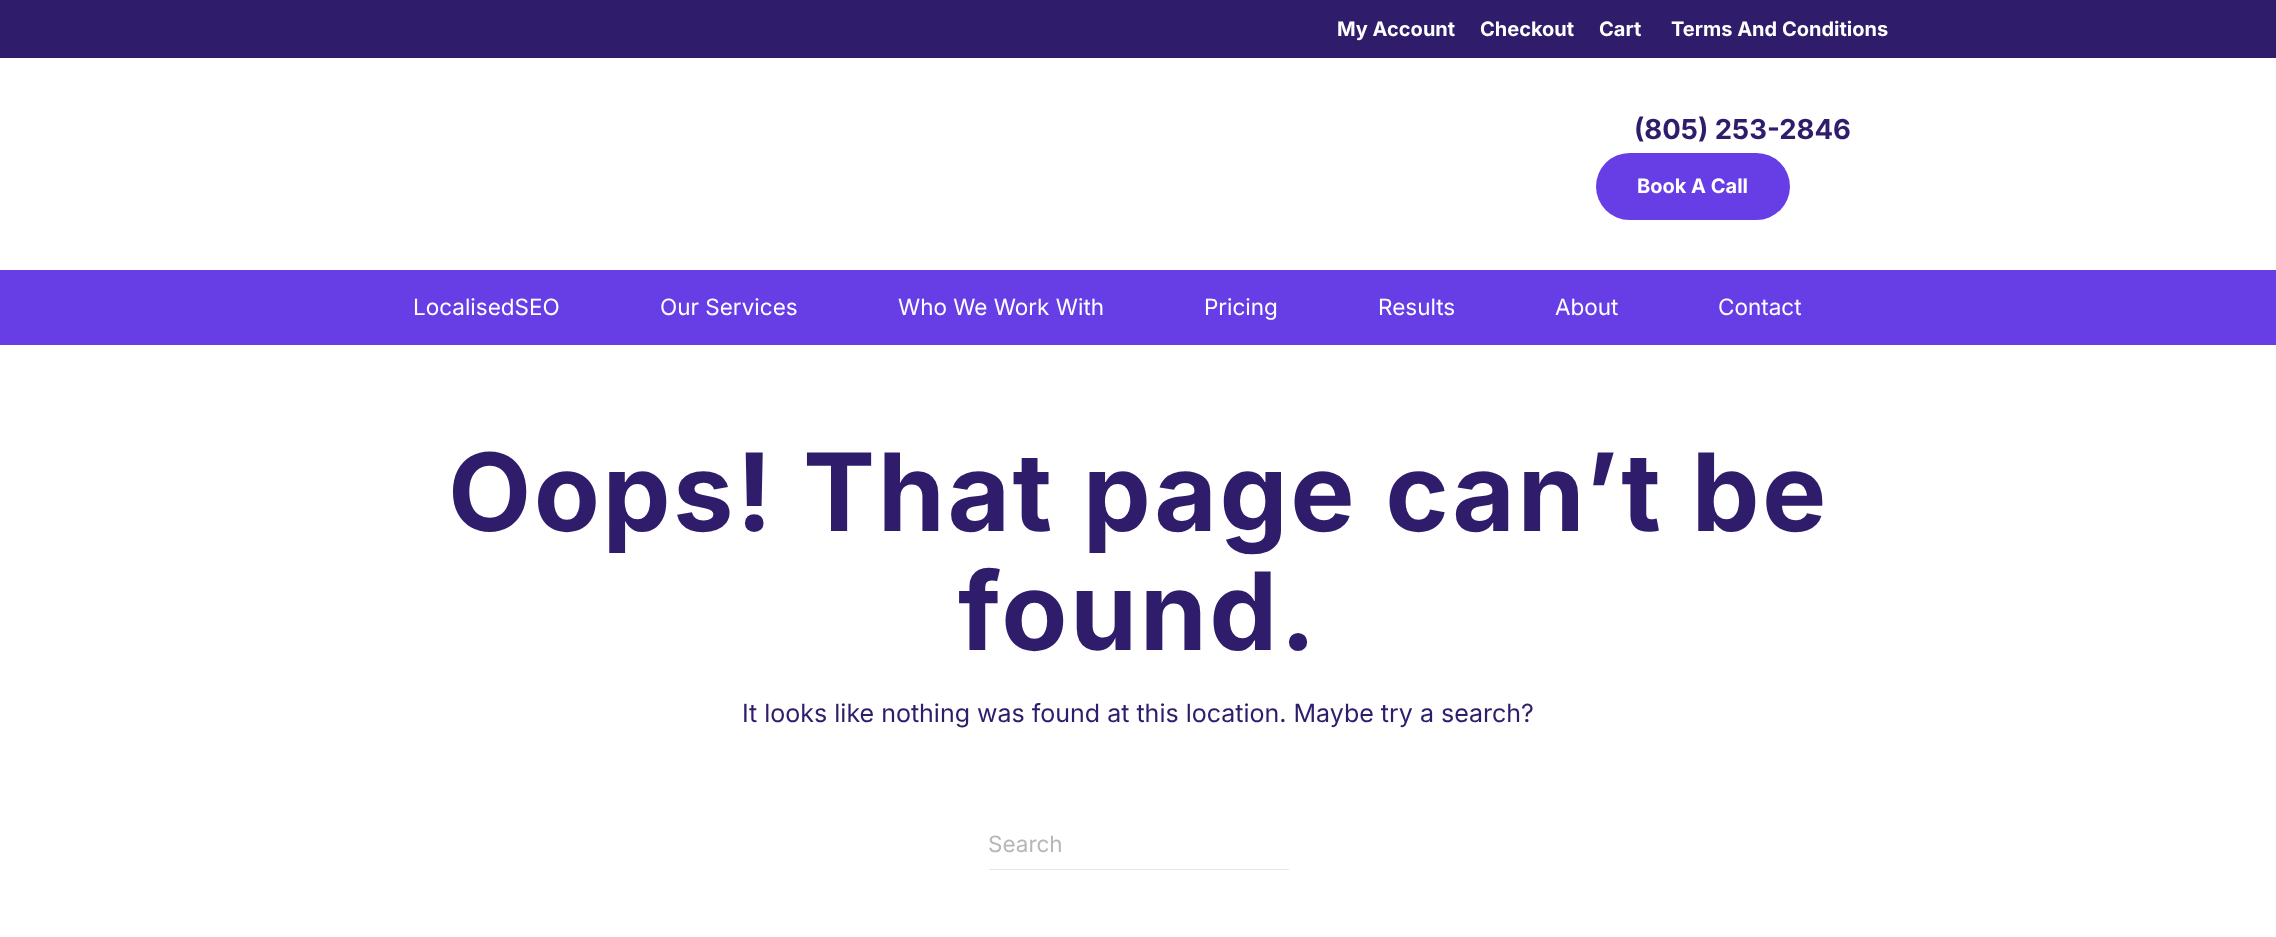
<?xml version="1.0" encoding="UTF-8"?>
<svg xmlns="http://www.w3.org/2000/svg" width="2276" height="937">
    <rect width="100%" height="100%" fill="#FFFFFF"/>
    <rect x="0" y="0" width="2276" height="58" fill="#2F1C6A"/>
    <text x="1337" y="36" font-family="Inter" font-size="20" font-weight="700" fill="#FFFFFF">My Account</text>
    <text x="1480" y="36" font-family="Inter" font-size="20" font-weight="700" fill="#FFFFFF">Checkout</text>
    <text x="1599" y="36" font-family="Inter" font-size="20" font-weight="700" fill="#FFFFFF">Cart</text>
    <text x="1671" y="36" font-family="Inter" font-size="20" font-weight="700" fill="#FFFFFF">Terms And Conditions</text>
    <text x="1634" y="139" font-family="Inter" font-size="27.5" font-weight="700" fill="#2F1C6A">(805) 253-2846</text>
    <rect x="1596" y="153" width="194" height="67" rx="33.5" fill="#673DE6"/>
    <text x="1637" y="193" font-family="Inter" font-size="20" font-weight="700" fill="#FFFFFF">Book A Call</text>
    <rect x="0" y="270" width="2276" height="75" fill="#673DE6"/>
    <text x="413" y="315" font-family="Inter" font-size="22.5" fill="#FFFFFF">LocalisedSEO</text>
    <text x="660" y="315" font-family="Inter" font-size="22.5" fill="#FFFFFF">Our Services</text>
    <text x="898" y="315" font-family="Inter" font-size="22.5" fill="#FFFFFF">Who We Work With</text>
    <text x="1204" y="315" font-family="Inter" font-size="22.5" fill="#FFFFFF">Pricing</text>
    <text x="1378" y="315" font-family="Inter" font-size="22.5" fill="#FFFFFF">Results</text>
    <text x="1555" y="315" font-family="Inter" font-size="22.5" fill="#FFFFFF">About</text>
    <text x="1718" y="315" font-family="Inter" font-size="22.5" fill="#FFFFFF">Contact</text>
    <text x="448" y="531" font-family="Inter" font-size="108" font-weight="700" letter-spacing="2.5" fill="#2F1C6A">Oops! That page can’t be</text>
    <text x="958" y="650" font-family="Inter" font-size="108" font-weight="700" letter-spacing="2.5" fill="#2F1C6A">found.</text>
    <text x="742" y="722" font-family="Inter" font-size="25" fill="#2F1C6A">It looks like nothing was found at this location. Maybe try a search?</text>
    <rect x="989" y="869" width="300" height="1" fill="#E5E5E7"/>
    <text x="988" y="852" font-family="Inter" font-size="22.5" fill="#B7B7B7">Search</text>
</svg>
